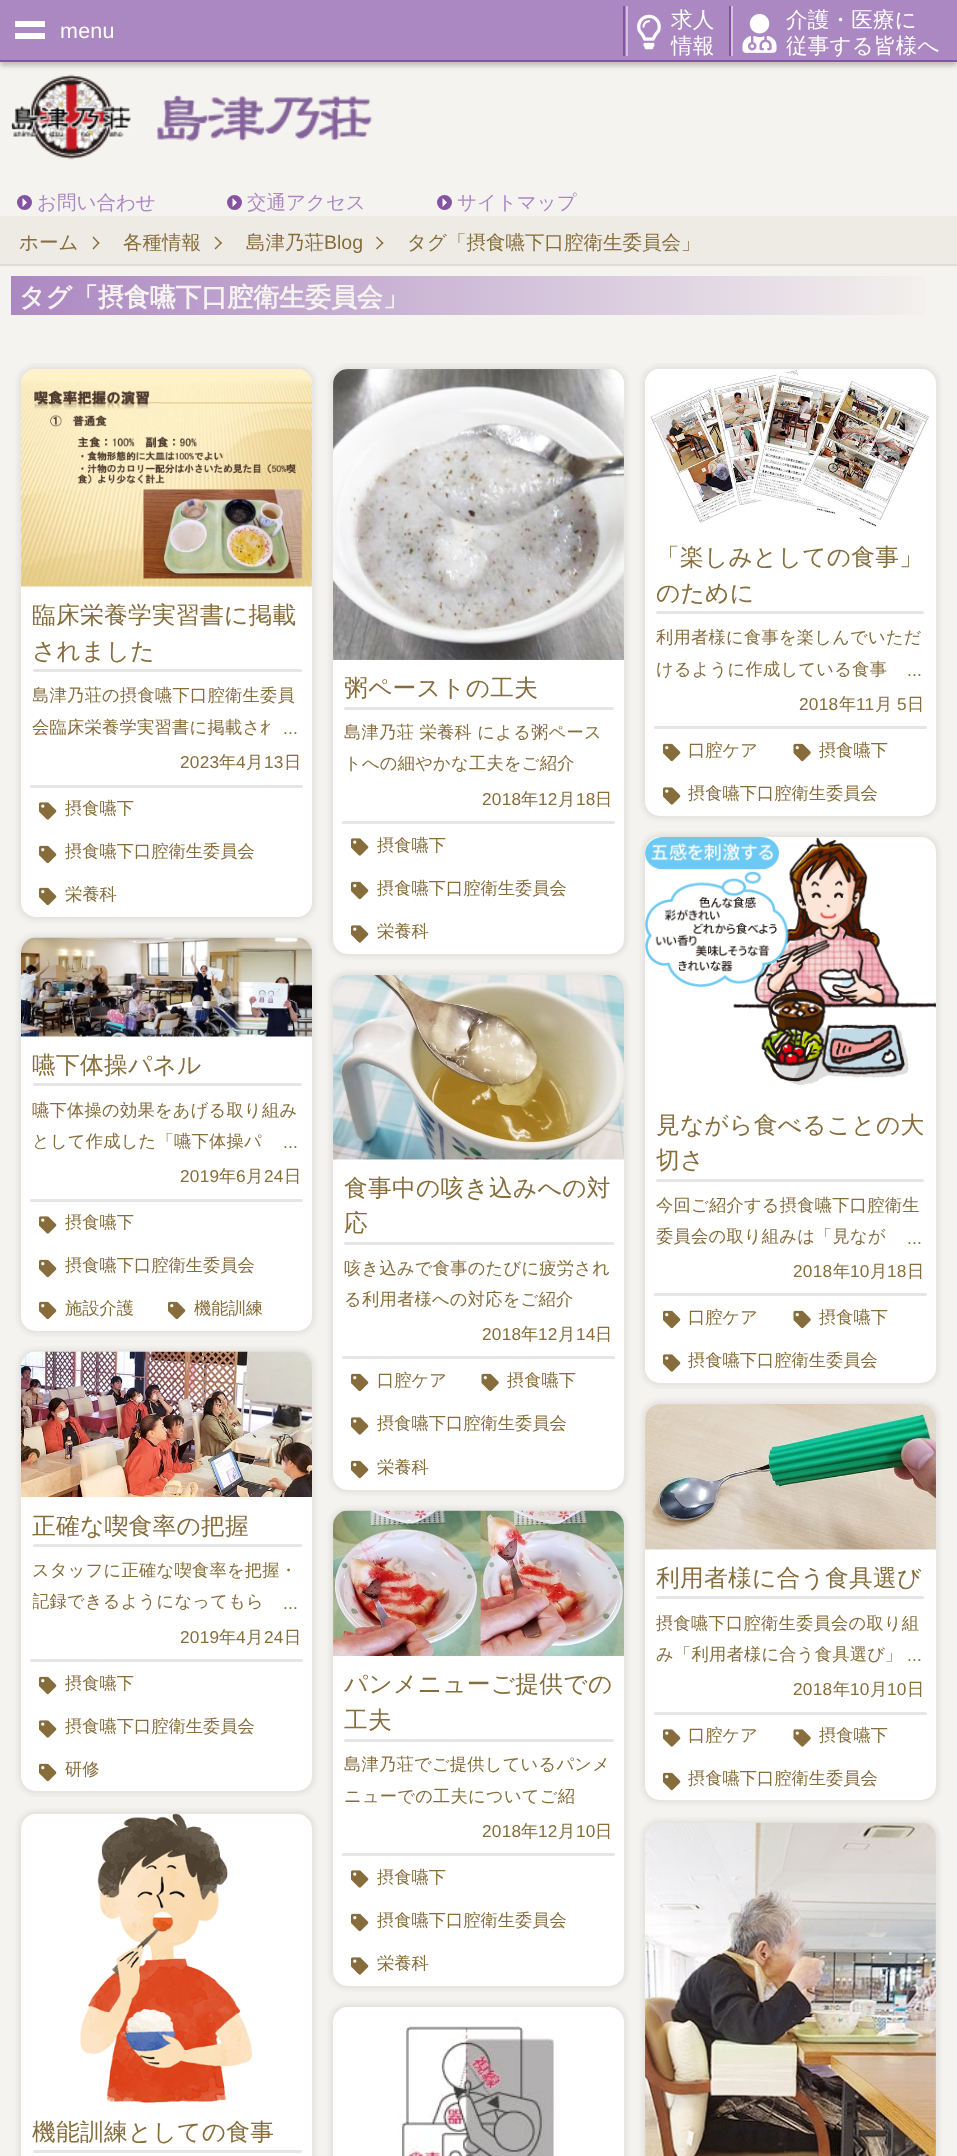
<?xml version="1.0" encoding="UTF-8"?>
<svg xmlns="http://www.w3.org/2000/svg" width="957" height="2156">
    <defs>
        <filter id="blur1" x="-50%" y="-200%" width="200%" height="500%"><feGaussianBlur stdDeviation="2"/></filter>
        <linearGradient id="g1" gradientUnits="userSpaceOnUse" x1="11" y1="276" x2="947" y2="276"><stop offset="0" stop-color="#AC88C2"/><stop offset="1" stop-color="#F5F3EF"/></linearGradient>
        <clipPath id="clip1"><rect x="33" y="672" width="269" height="69"/></clipPath>
        <clipPath id="clip2"><rect x="33" y="1547" width="269" height="69"/></clipPath>
    </defs>
    <rect width="100%" height="100%" fill="#F5F3EF"/>
    <rect x="0" y="-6" width="957" height="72" fill="#505050" fill-opacity="0.3" filter="url(#blur1)"/>
    <rect x="0" y="0" width="957" height="60" fill="#AC88C2"/>
    <rect x="729" y="6" width="2" height="50" fill="#8453A2"/>
    <rect x="623" y="6" width="2" height="50" fill="#8453A2"/>
    <rect x="626" y="6" width="2" height="50" fill="#D3C0DF"/>
    <image x="637" y="14" width="24" height="36" href="img_01.png"/>
    <text font-family="WenQuanYi Zen Hei" font-size="21.5" font-weight="500" letter-spacing="0.25" fill="#FFFFFF">
        <tspan x="671" y="27">求人</tspan>
        <tspan x="671" y="53">情報</tspan>
    </text>
    <rect x="731" y="6" width="2" height="50" fill="#D3C0DF"/>
    <image x="742" y="14" width="35" height="39" href="img_02.png"/>
    <text font-family="WenQuanYi Zen Hei" font-size="21.5" font-weight="500" letter-spacing="0.25" fill="#FFFFFF">
        <tspan x="786" y="27">介護・医療に</tspan>
        <tspan x="786" y="53">従事する皆様へ</tspan>
    </text>
    <image x="10" y="74" width="363" height="86" href="img_03.png"/>
    <circle cx="24.5" cy="202.5" r="7.5" fill="#8453A2"/>
    <text x="37" y="209" font-family="WenQuanYi Zen Hei" font-size="19.5" font-weight="500" fill="#AC88C2">お問い合わせ</text>
    <path d="M 22.5 207 V 198 L 27 202.5 Z" fill="#FFFFFF"/>
    <circle cx="234.5" cy="202.5" r="7.5" fill="#8453A2"/>
    <text x="247" y="209" font-family="WenQuanYi Zen Hei" font-size="19.5" font-weight="500" fill="#AC88C2">交通アクセス</text>
    <path d="M 232.5 207 V 198 L 237 202.5 Z" fill="#FFFFFF"/>
    <circle cx="444.5" cy="202.5" r="7.5" fill="#8453A2"/>
    <text x="457" y="209" font-family="WenQuanYi Zen Hei" font-size="19.5" font-weight="500" fill="#AC88C2">サイトマップ</text>
    <path d="M 442.5 207 V 198 L 447 202.5 Z" fill="#FFFFFF"/>
    <rect x="0" y="60" width="957" height="2" fill="#8453A2"/>
    <rect x="15" y="21" width="30" height="6" fill="#FFFFFF"/>
    <rect x="15" y="33" width="30" height="6" fill="#FFFFFF"/>
    <text x="60" y="38" font-family="Liberation Sans" font-size="21.5" letter-spacing="0.25" fill="#FFFFFF">menu</text>
    <rect x="0" y="216" width="957" height="48" fill="#EEEBE5"/>
    <rect x="0" y="264" width="957" height="2" fill="#DEDCD6"/>
    <text x="19" y="249" font-family="WenQuanYi Zen Hei" font-size="19.5" font-weight="500" fill="#876D3C">ホーム</text>
    <path d="M 93.5 236.5 L 99.5 243 L 98.5 244 L 92.5 237.5 Z" fill="#876D3C"/>
    <path d="M 98.5 242 L 99.5 243 L 93.5 249.5 L 92.5 248.5 Z" fill="#876D3C"/>
    <text x="123" y="249" font-family="WenQuanYi Zen Hei" font-size="19.5" font-weight="500" fill="#876D3C">各種情報</text>
    <path d="M 215.5 236.5 L 222 243 L 221 244 L 214.5 237.5 Z" fill="#876D3C"/>
    <path d="M 221 242 L 222 243 L 215.5 249.5 L 214.5 248.5 Z" fill="#876D3C"/>
    <text x="246" y="249" font-family="WenQuanYi Zen Hei" font-size="19.5" font-weight="500" fill="#876D3C">島津乃荘</text>
    <text x="324" y="249" font-family="Liberation Sans" font-size="19.5" fill="#876D3C">Blog</text>
    <path d="M 377 236.5 L 383.5 243 L 382.5 244 L 376 237.5 Z" fill="#876D3C"/>
    <path d="M 382.5 242 L 383.5 243 L 377 249.5 L 376 248.5 Z" fill="#876D3C"/>
    <text x="407" y="249" font-family="WenQuanYi Zen Hei" font-size="19.5" font-weight="500" fill="#876D3C">タグ「摂食嚥下口腔衛生委員会」</text>
    <rect x="11" y="276" width="914" height="39" fill="url(#g1)"/>
    <text x="19" y="306" font-family="WenQuanYi Zen Hei" font-size="25.9" font-weight="700" fill="#F5F3EF">タグ「摂食嚥下口腔衛生委員会」</text>
    <rect x="18" y="366" width="297" height="554" rx="18" fill="#505050" fill-opacity="0.1" filter="url(#blur1)"/>
    <rect x="21" y="369" width="291" height="548" rx="15" fill="#FFFFFF"/>
    <image x="21" y="369" width="291" height="218" href="img_04.png"/>
    <text font-family="WenQuanYi Zen Hei" font-size="23.75" font-weight="500" letter-spacing="0.25" fill="#876D3C">
        <tspan x="32" y="623">臨床栄養学実習書に掲載</tspan>
        <tspan x="32" y="659">されました</tspan>
    </text>
    <rect x="33" y="669" width="269" height="3" rx="1.5" fill="#E6E6E6"/>
    <g clip-path="url(#clip1)">
        <text x="32" y="701" font-family="WenQuanYi Zen Hei" font-size="17.25" font-weight="500" letter-spacing="0.25" fill="#876D3C">島津乃荘の摂食嚥下口腔衛生委員</text>
    </g>
    <text x="32" y="733" font-family="WenQuanYi Zen Hei" font-size="17.25" font-weight="500" letter-spacing="0.25" fill="#876D3C">会臨床栄養学実習書に掲載され</text>
    <rect x="270" y="723" width="8" height="12" fill="#FFFFFF"/>
    <text x="283" y="734" font-family="Liberation Sans" font-size="17.25" letter-spacing="0.25" fill="#876D3C">...</text>
    <text x="180" y="768" font-family="Liberation Sans" font-size="17.25" letter-spacing="0.25" fill="#876D3C">2023</text>
    <text x="219" y="768" font-family="WenQuanYi Zen Hei" font-size="17.25" font-weight="500" letter-spacing="0.25" fill="#876D3C">年</text>
    <text x="236" y="768" font-family="Liberation Sans" font-size="17.25" letter-spacing="0.25" fill="#876D3C">4</text>
    <text x="246" y="768" font-family="WenQuanYi Zen Hei" font-size="17.25" font-weight="500" letter-spacing="0.25" fill="#876D3C">月</text>
    <text x="264" y="768" font-family="Liberation Sans" font-size="17.25" letter-spacing="0.25" fill="#876D3C">13</text>
    <text x="284" y="768" font-family="WenQuanYi Zen Hei" font-size="17.25" font-weight="500" letter-spacing="0.25" fill="#876D3C">日</text>
    <rect x="30" y="785" width="273" height="3" rx="1.5" fill="#E6E6E6"/>
    <image x="39" y="802" width="18" height="18" href="img_05.png"/>
    <text x="65" y="814" font-family="WenQuanYi Zen Hei" font-size="17.25" font-weight="500" fill="#876D3C">摂食嚥下</text>
    <image x="39" y="845" width="18" height="19" href="img_06.png"/>
    <text x="65" y="857" font-family="WenQuanYi Zen Hei" font-size="17.25" font-weight="500" fill="#876D3C">摂食嚥下口腔衛生委員会</text>
    <image x="39" y="887" width="18" height="19" href="img_06.png"/>
    <text x="65" y="900" font-family="WenQuanYi Zen Hei" font-size="17.25" font-weight="500" fill="#876D3C">栄養科</text>
    <rect x="330" y="366" width="297" height="591" rx="18" fill="#505050" fill-opacity="0.1" filter="url(#blur1)"/>
    <rect x="333" y="369" width="291" height="585" rx="15" fill="#FFFFFF"/>
    <image x="333" y="369" width="291" height="291" href="img_07.png"/>
    <text x="344" y="696" font-family="WenQuanYi Zen Hei" font-size="23.75" font-weight="500" letter-spacing="0.25" fill="#876D3C">粥ペーストの工夫</text>
    <rect x="344" y="707" width="270" height="3" rx="1.5" fill="#E6E6E6"/>
    <text font-family="WenQuanYi Zen Hei" font-size="17.25" font-weight="500" letter-spacing="0.25" fill="#876D3C">
        <tspan x="344" y="738">島津乃荘 栄養科 による粥ペース</tspan>
        <tspan x="344" y="769">トへの細やかな工夫をご紹介</tspan>
    </text>
    <text x="482" y="805" font-family="Liberation Sans" font-size="17.25" letter-spacing="0.25" fill="#876D3C">2018</text>
    <text x="521" y="805" font-family="WenQuanYi Zen Hei" font-size="17.25" font-weight="500" letter-spacing="0.25" fill="#876D3C">年</text>
    <text x="538" y="805" font-family="Liberation Sans" font-size="17.25" letter-spacing="0.25" fill="#876D3C">12</text>
    <text x="558" y="805" font-family="WenQuanYi Zen Hei" font-size="17.25" font-weight="500" letter-spacing="0.25" fill="#876D3C">月</text>
    <text x="576" y="805" font-family="Liberation Sans" font-size="17.25" letter-spacing="0.25" fill="#876D3C">18</text>
    <text x="595" y="805" font-family="WenQuanYi Zen Hei" font-size="17.25" font-weight="500" letter-spacing="0.25" fill="#876D3C">日</text>
    <rect x="342" y="821" width="273" height="3" rx="1.5" fill="#E6E6E6"/>
    <image x="351" y="838" width="18" height="18" href="img_05.png"/>
    <text x="377" y="851" font-family="WenQuanYi Zen Hei" font-size="17.25" font-weight="500" fill="#876D3C">摂食嚥下</text>
    <image x="351" y="881" width="18" height="19" href="img_06.png"/>
    <text x="377" y="894" font-family="WenQuanYi Zen Hei" font-size="17.25" font-weight="500" fill="#876D3C">摂食嚥下口腔衛生委員会</text>
    <image x="351" y="925" width="18" height="18" href="img_05.png"/>
    <text x="377" y="937" font-family="WenQuanYi Zen Hei" font-size="17.25" font-weight="500" fill="#876D3C">栄養科</text>
    <rect x="642" y="366" width="297" height="453" rx="18" fill="#505050" fill-opacity="0.1" filter="url(#blur1)"/>
    <rect x="645" y="369" width="291" height="447" rx="15" fill="#FFFFFF"/>
    <image x="645" y="369" width="291" height="158" href="img_08.png"/>
    <text font-family="WenQuanYi Zen Hei" font-size="23.75" font-weight="500" letter-spacing="0.25" fill="#876D3C">
        <tspan x="656" y="565">「楽しみとしての食事」</tspan>
        <tspan x="656" y="601">のために</tspan>
    </text>
    <rect x="656" y="611" width="268" height="3" rx="1.5" fill="#E6E6E6"/>
    <text font-family="WenQuanYi Zen Hei" font-size="17.25" font-weight="500" letter-spacing="0.25" fill="#876D3C">
        <tspan x="656" y="643">利用者様に食事を楽しんでいただ</tspan>
        <tspan x="656" y="675">けるように作成している食事</tspan>
    </text>
    <text x="907" y="676" font-family="Liberation Sans" font-size="17.25" letter-spacing="0.25" fill="#876D3C">...</text>
    <text x="799" y="710" font-family="Liberation Sans" font-size="17.25" letter-spacing="0.25" fill="#876D3C">2018</text>
    <text x="839" y="710" font-family="WenQuanYi Zen Hei" font-size="17.25" font-weight="500" letter-spacing="0.25" fill="#876D3C">年</text>
    <text x="856" y="710" font-family="Liberation Sans" font-size="17.25" letter-spacing="0.25" fill="#876D3C">11</text>
    <text x="875" y="710" font-family="WenQuanYi Zen Hei" font-size="17.25" font-weight="500" letter-spacing="0.25" fill="#876D3C">月</text>
    <text x="897" y="710" font-family="Liberation Sans" font-size="17.25" letter-spacing="0.25" fill="#876D3C">5</text>
    <text x="907" y="710" font-family="WenQuanYi Zen Hei" font-size="17.25" font-weight="500" letter-spacing="0.25" fill="#876D3C">日</text>
    <rect x="654" y="726" width="273" height="3" rx="1.5" fill="#E6E6E6"/>
    <image x="663" y="743" width="18" height="19" href="img_06.png"/>
    <text x="688" y="756" font-family="WenQuanYi Zen Hei" font-size="17.25" font-weight="500" fill="#876D3C">口腔ケア</text>
    <image x="793" y="743" width="18" height="19" href="img_09.png"/>
    <text x="819" y="756" font-family="WenQuanYi Zen Hei" font-size="17.25" font-weight="500" fill="#876D3C">摂食嚥下</text>
    <image x="663" y="787" width="18" height="18" href="img_05.png"/>
    <text x="688" y="799" font-family="WenQuanYi Zen Hei" font-size="17.25" font-weight="500" fill="#876D3C">摂食嚥下口腔衛生委員会</text>
    <rect x="18" y="935" width="297" height="399" rx="18" fill="#505050" fill-opacity="0.1" filter="url(#blur1)"/>
    <rect x="21" y="938" width="291" height="393" rx="15" fill="#FFFFFF"/>
    <image x="21" y="937" width="291" height="100" href="img_10.png"/>
    <text x="32" y="1073" font-family="WenQuanYi Zen Hei" font-size="23.75" font-weight="500" letter-spacing="0.25" fill="#876D3C">嚥下体操パネル</text>
    <rect x="33" y="1083" width="269" height="3" rx="1.5" fill="#E6E6E6"/>
    <text font-family="WenQuanYi Zen Hei" font-size="17.25" font-weight="500" letter-spacing="0.25" fill="#876D3C">
        <tspan x="32" y="1116">嚥下体操の効果をあげる取り組み</tspan>
        <tspan x="32" y="1147">として作成した「嚥下体操パ</tspan>
    </text>
    <text x="283" y="1148" font-family="Liberation Sans" font-size="17.25" letter-spacing="0.25" fill="#876D3C">...</text>
    <text x="180" y="1182" font-family="Liberation Sans" font-size="17.25" letter-spacing="0.25" fill="#876D3C">2019</text>
    <text x="219" y="1182" font-family="WenQuanYi Zen Hei" font-size="17.25" font-weight="500" letter-spacing="0.25" fill="#876D3C">年</text>
    <text x="236" y="1182" font-family="Liberation Sans" font-size="17.25" letter-spacing="0.25" fill="#876D3C">6</text>
    <text x="246" y="1182" font-family="WenQuanYi Zen Hei" font-size="17.25" font-weight="500" letter-spacing="0.25" fill="#876D3C">月</text>
    <text x="264" y="1182" font-family="Liberation Sans" font-size="17.25" letter-spacing="0.25" fill="#876D3C">24</text>
    <text x="284" y="1182" font-family="WenQuanYi Zen Hei" font-size="17.25" font-weight="500" letter-spacing="0.25" fill="#876D3C">日</text>
    <rect x="30" y="1199" width="273" height="3" rx="1.5" fill="#E6E6E6"/>
    <image x="39" y="1216" width="18" height="18" href="img_05.png"/>
    <text x="65" y="1228" font-family="WenQuanYi Zen Hei" font-size="17.25" font-weight="500" fill="#876D3C">摂食嚥下</text>
    <image x="39" y="1259" width="18" height="19" href="img_06.png"/>
    <text x="65" y="1271" font-family="WenQuanYi Zen Hei" font-size="17.25" font-weight="500" fill="#876D3C">摂食嚥下口腔衛生委員会</text>
    <image x="39" y="1301" width="18" height="19" href="img_06.png"/>
    <text x="65" y="1314" font-family="WenQuanYi Zen Hei" font-size="17.25" font-weight="500" fill="#876D3C">施設介護</text>
    <image x="168" y="1301" width="18" height="19" href="img_06.png"/>
    <text x="194" y="1314" font-family="WenQuanYi Zen Hei" font-size="17.25" font-weight="500" fill="#876D3C">機能訓練</text>
    <rect x="330" y="972" width="297" height="521" rx="18" fill="#505050" fill-opacity="0.1" filter="url(#blur1)"/>
    <rect x="333" y="975" width="291" height="515" rx="15" fill="#FFFFFF"/>
    <image x="333" y="975" width="291" height="185" href="img_11.png"/>
    <text font-family="WenQuanYi Zen Hei" font-size="23.75" font-weight="500" letter-spacing="0.25" fill="#876D3C">
        <tspan x="344" y="1196">食事中の咳き込みへの対</tspan>
        <tspan x="344" y="1231">応</tspan>
    </text>
    <rect x="344" y="1242" width="270" height="3" rx="1.5" fill="#E6E6E6"/>
    <text font-family="WenQuanYi Zen Hei" font-size="17.25" font-weight="500" letter-spacing="0.25" fill="#876D3C">
        <tspan x="344" y="1274">咳き込みで食事のたびに疲労され</tspan>
        <tspan x="344" y="1305">る利用者様への対応をご紹介</tspan>
    </text>
    <text x="482" y="1340" font-family="Liberation Sans" font-size="17.25" letter-spacing="0.25" fill="#876D3C">2018</text>
    <text x="521" y="1340" font-family="WenQuanYi Zen Hei" font-size="17.25" font-weight="500" letter-spacing="0.25" fill="#876D3C">年</text>
    <text x="538" y="1340" font-family="Liberation Sans" font-size="17.25" letter-spacing="0.25" fill="#876D3C">12</text>
    <text x="558" y="1340" font-family="WenQuanYi Zen Hei" font-size="17.25" font-weight="500" letter-spacing="0.25" fill="#876D3C">月</text>
    <text x="576" y="1340" font-family="Liberation Sans" font-size="17.25" letter-spacing="0.25" fill="#876D3C">14</text>
    <text x="595" y="1340" font-family="WenQuanYi Zen Hei" font-size="17.25" font-weight="500" letter-spacing="0.25" fill="#876D3C">日</text>
    <rect x="342" y="1356" width="273" height="3" rx="1.5" fill="#E6E6E6"/>
    <image x="351" y="1373" width="18" height="19" href="img_06.png"/>
    <text x="377" y="1386" font-family="WenQuanYi Zen Hei" font-size="17.25" font-weight="500" fill="#876D3C">口腔ケア</text>
    <image x="481" y="1373" width="18" height="19" href="img_09.png"/>
    <text x="507" y="1386" font-family="WenQuanYi Zen Hei" font-size="17.25" font-weight="500" fill="#876D3C">摂食嚥下</text>
    <image x="351" y="1417" width="18" height="18" href="img_05.png"/>
    <text x="377" y="1429" font-family="WenQuanYi Zen Hei" font-size="17.25" font-weight="500" fill="#876D3C">摂食嚥下口腔衛生委員会</text>
    <image x="351" y="1460" width="18" height="19" href="img_06.png"/>
    <text x="377" y="1473" font-family="WenQuanYi Zen Hei" font-size="17.25" font-weight="500" fill="#876D3C">栄養科</text>
    <rect x="642" y="834" width="297" height="552" rx="18" fill="#505050" fill-opacity="0.1" filter="url(#blur1)"/>
    <rect x="645" y="837" width="291" height="546" rx="15" fill="#FFFFFF"/>
    <image x="645" y="837" width="291" height="257" href="img_12.png"/>
    <text font-family="WenQuanYi Zen Hei" font-size="23.75" font-weight="500" letter-spacing="0.25" fill="#876D3C">
        <tspan x="656" y="1133">見ながら食べることの大</tspan>
        <tspan x="656" y="1168">切さ</tspan>
    </text>
    <rect x="656" y="1179" width="268" height="3" rx="1.5" fill="#E6E6E6"/>
    <text font-family="WenQuanYi Zen Hei" font-size="17.25" font-weight="500" letter-spacing="0.25" fill="#876D3C">
        <tspan x="656" y="1211">今回ご紹介する摂食嚥下口腔衛生</tspan>
        <tspan x="656" y="1242">委員会の取り組みは「見なが</tspan>
    </text>
    <text x="907" y="1244" font-family="Liberation Sans" font-size="17.25" letter-spacing="0.25" fill="#876D3C">...</text>
    <text x="793" y="1277" font-family="Liberation Sans" font-size="17.25" letter-spacing="0.25" fill="#876D3C">2018</text>
    <text x="833" y="1277" font-family="WenQuanYi Zen Hei" font-size="17.25" font-weight="500" letter-spacing="0.25" fill="#876D3C">年</text>
    <text x="850" y="1277" font-family="Liberation Sans" font-size="17.25" letter-spacing="0.25" fill="#876D3C">10</text>
    <text x="870" y="1277" font-family="WenQuanYi Zen Hei" font-size="17.25" font-weight="500" letter-spacing="0.25" fill="#876D3C">月</text>
    <text x="887" y="1277" font-family="Liberation Sans" font-size="17.25" letter-spacing="0.25" fill="#876D3C">18</text>
    <text x="907" y="1277" font-family="WenQuanYi Zen Hei" font-size="17.25" font-weight="500" letter-spacing="0.25" fill="#876D3C">日</text>
    <rect x="654" y="1293" width="273" height="3" rx="1.5" fill="#E6E6E6"/>
    <image x="663" y="1310" width="18" height="19" href="img_06.png"/>
    <text x="688" y="1323" font-family="WenQuanYi Zen Hei" font-size="17.25" font-weight="500" fill="#876D3C">口腔ケア</text>
    <image x="793" y="1310" width="18" height="19" href="img_09.png"/>
    <text x="819" y="1323" font-family="WenQuanYi Zen Hei" font-size="17.25" font-weight="500" fill="#876D3C">摂食嚥下</text>
    <image x="663" y="1354" width="18" height="18" href="img_05.png"/>
    <text x="688" y="1366" font-family="WenQuanYi Zen Hei" font-size="17.25" font-weight="500" fill="#876D3C">摂食嚥下口腔衛生委員会</text>
    <rect x="18" y="1349" width="297" height="445" rx="18" fill="#505050" fill-opacity="0.1" filter="url(#blur1)"/>
    <rect x="21" y="1352" width="291" height="439" rx="15" fill="#FFFFFF"/>
    <image x="21" y="1351" width="291" height="146" href="img_13.png"/>
    <text x="32" y="1534" font-family="WenQuanYi Zen Hei" font-size="23.75" font-weight="500" letter-spacing="0.25" fill="#876D3C">正確な喫食率の把握</text>
    <rect x="33" y="1544" width="269" height="3" rx="1.5" fill="#E6E6E6"/>
    <text x="32" y="1576" font-family="WenQuanYi Zen Hei" font-size="17.25" font-weight="500" letter-spacing="0.25" fill="#876D3C">スタッフに正確な喫食率を把握・</text>
    <g clip-path="url(#clip2)">
        <text x="32" y="1607" font-family="WenQuanYi Zen Hei" font-size="17.25" font-weight="500" letter-spacing="0.25" fill="#876D3C">記録できるようになってもら</text>
    </g>
    <text x="283" y="1609" font-family="Liberation Sans" font-size="17.25" letter-spacing="0.25" fill="#876D3C">...</text>
    <text x="180" y="1643" font-family="Liberation Sans" font-size="17.25" letter-spacing="0.25" fill="#876D3C">2019</text>
    <text x="219" y="1643" font-family="WenQuanYi Zen Hei" font-size="17.25" font-weight="500" letter-spacing="0.25" fill="#876D3C">年</text>
    <text x="236" y="1643" font-family="Liberation Sans" font-size="17.25" letter-spacing="0.25" fill="#876D3C">4</text>
    <text x="246" y="1643" font-family="WenQuanYi Zen Hei" font-size="17.25" font-weight="500" letter-spacing="0.25" fill="#876D3C">月</text>
    <text x="264" y="1643" font-family="Liberation Sans" font-size="17.25" letter-spacing="0.25" fill="#876D3C">24</text>
    <text x="284" y="1643" font-family="WenQuanYi Zen Hei" font-size="17.25" font-weight="500" letter-spacing="0.25" fill="#876D3C">日</text>
    <rect x="30" y="1659" width="273" height="3" rx="1.5" fill="#E6E6E6"/>
    <image x="39" y="1676" width="18" height="19" href="img_06.png"/>
    <text x="65" y="1689" font-family="WenQuanYi Zen Hei" font-size="17.25" font-weight="500" fill="#876D3C">摂食嚥下</text>
    <image x="39" y="1720" width="18" height="18" href="img_05.png"/>
    <text x="65" y="1732" font-family="WenQuanYi Zen Hei" font-size="17.25" font-weight="500" fill="#876D3C">摂食嚥下口腔衛生委員会</text>
    <image x="39" y="1763" width="18" height="19" href="img_06.png"/>
    <text x="65" y="1775" font-family="WenQuanYi Zen Hei" font-size="17.25" font-weight="500" fill="#876D3C">研修</text>
    <rect x="330" y="1508" width="297" height="481" rx="18" fill="#505050" fill-opacity="0.1" filter="url(#blur1)"/>
    <rect x="333" y="1511" width="291" height="475" rx="15" fill="#FFFFFF"/>
    <image x="333" y="1510" width="291" height="146" href="img_14.png"/>
    <text font-family="WenQuanYi Zen Hei" font-size="23.75" font-weight="500" letter-spacing="0.25" fill="#876D3C">
        <tspan x="344" y="1692">パンメニューご提供での</tspan>
        <tspan x="344" y="1728">工夫</tspan>
    </text>
    <rect x="344" y="1739" width="270" height="3" rx="1.5" fill="#E6E6E6"/>
    <text font-family="WenQuanYi Zen Hei" font-size="17.25" font-weight="500" letter-spacing="0.25" fill="#876D3C">
        <tspan x="344" y="1770">島津乃荘でご提供しているパンメ</tspan>
        <tspan x="344" y="1802">ニューでの工夫についてご紹</tspan>
    </text>
    <text x="482" y="1837" font-family="Liberation Sans" font-size="17.25" letter-spacing="0.25" fill="#876D3C">2018</text>
    <text x="521" y="1837" font-family="WenQuanYi Zen Hei" font-size="17.25" font-weight="500" letter-spacing="0.25" fill="#876D3C">年</text>
    <text x="538" y="1837" font-family="Liberation Sans" font-size="17.25" letter-spacing="0.25" fill="#876D3C">12</text>
    <text x="558" y="1837" font-family="WenQuanYi Zen Hei" font-size="17.25" font-weight="500" letter-spacing="0.25" fill="#876D3C">月</text>
    <text x="576" y="1837" font-family="Liberation Sans" font-size="17.25" letter-spacing="0.25" fill="#876D3C">10</text>
    <text x="595" y="1837" font-family="WenQuanYi Zen Hei" font-size="17.25" font-weight="500" letter-spacing="0.25" fill="#876D3C">日</text>
    <rect x="342" y="1853" width="273" height="3" rx="1.5" fill="#E6E6E6"/>
    <image x="351" y="1870" width="18" height="18" href="img_05.png"/>
    <text x="377" y="1883" font-family="WenQuanYi Zen Hei" font-size="17.25" font-weight="500" fill="#876D3C">摂食嚥下</text>
    <image x="351" y="1913" width="18" height="19" href="img_06.png"/>
    <text x="377" y="1926" font-family="WenQuanYi Zen Hei" font-size="17.25" font-weight="500" fill="#876D3C">摂食嚥下口腔衛生委員会</text>
    <image x="351" y="1957" width="18" height="18" href="img_05.png"/>
    <text x="377" y="1969" font-family="WenQuanYi Zen Hei" font-size="17.25" font-weight="500" fill="#876D3C">栄養科</text>
    <rect x="642" y="1401" width="297" height="402" rx="18" fill="#505050" fill-opacity="0.1" filter="url(#blur1)"/>
    <rect x="645" y="1404" width="291" height="396" rx="15" fill="#FFFFFF"/>
    <image x="645" y="1404" width="291" height="146" href="img_15.png"/>
    <text x="656" y="1586" font-family="WenQuanYi Zen Hei" font-size="23.75" font-weight="500" letter-spacing="0.25" fill="#876D3C">利用者様に合う食具選び</text>
    <rect x="656" y="1596" width="268" height="3" rx="1.5" fill="#E6E6E6"/>
    <text font-family="WenQuanYi Zen Hei" font-size="17.25" font-weight="500" letter-spacing="0.25" fill="#876D3C">
        <tspan x="656" y="1629">摂食嚥下口腔衛生委員会の取り組</tspan>
        <tspan x="656" y="1660">み「利用者様に合う食具選び」</tspan>
    </text>
    <text x="907" y="1661" font-family="Liberation Sans" font-size="17.25" letter-spacing="0.25" fill="#876D3C">...</text>
    <text x="793" y="1695" font-family="Liberation Sans" font-size="17.25" letter-spacing="0.25" fill="#876D3C">2018</text>
    <text x="833" y="1695" font-family="WenQuanYi Zen Hei" font-size="17.25" font-weight="500" letter-spacing="0.25" fill="#876D3C">年</text>
    <text x="850" y="1695" font-family="Liberation Sans" font-size="17.25" letter-spacing="0.25" fill="#876D3C">10</text>
    <text x="870" y="1695" font-family="WenQuanYi Zen Hei" font-size="17.25" font-weight="500" letter-spacing="0.25" fill="#876D3C">月</text>
    <text x="887" y="1695" font-family="Liberation Sans" font-size="17.25" letter-spacing="0.25" fill="#876D3C">10</text>
    <text x="907" y="1695" font-family="WenQuanYi Zen Hei" font-size="17.25" font-weight="500" letter-spacing="0.25" fill="#876D3C">日</text>
    <rect x="654" y="1712" width="273" height="3" rx="1.5" fill="#E6E6E6"/>
    <image x="663" y="1729" width="18" height="18" href="img_05.png"/>
    <text x="688" y="1741" font-family="WenQuanYi Zen Hei" font-size="17.25" font-weight="500" fill="#876D3C">口腔ケア</text>
    <image x="793" y="1729" width="18" height="18" href="img_16.png"/>
    <text x="819" y="1741" font-family="WenQuanYi Zen Hei" font-size="17.25" font-weight="500" fill="#876D3C">摂食嚥下</text>
    <image x="663" y="1772" width="18" height="19" href="img_06.png"/>
    <text x="688" y="1784" font-family="WenQuanYi Zen Hei" font-size="17.25" font-weight="500" fill="#876D3C">摂食嚥下口腔衛生委員会</text>
    <rect x="18" y="1811" width="297" height="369" rx="18" fill="#505050" fill-opacity="0.1" filter="url(#blur1)"/>
    <rect x="21" y="1814" width="291" height="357" rx="15" fill="#FFFFFF"/>
    <image x="80" y="1813" width="173" height="290" href="img_17.png"/>
    <text x="32" y="2140" font-family="WenQuanYi Zen Hei" font-size="23.75" font-weight="500" letter-spacing="0.25" fill="#876D3C">機能訓練としての食事</text>
    <rect x="33" y="2150" width="269" height="3" rx="1.5" fill="#E6E6E6"/>
    <rect x="330" y="2004" width="297" height="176" rx="18" fill="#505050" fill-opacity="0.1" filter="url(#blur1)"/>
    <image x="333" y="2007" width="291" height="149" href="img_18.png"/>
    <rect x="642" y="1820" width="297" height="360" rx="18" fill="#505050" fill-opacity="0.1" filter="url(#blur1)"/>
    <image x="645" y="1822" width="291" height="334" href="img_19.png"/>
</svg>
